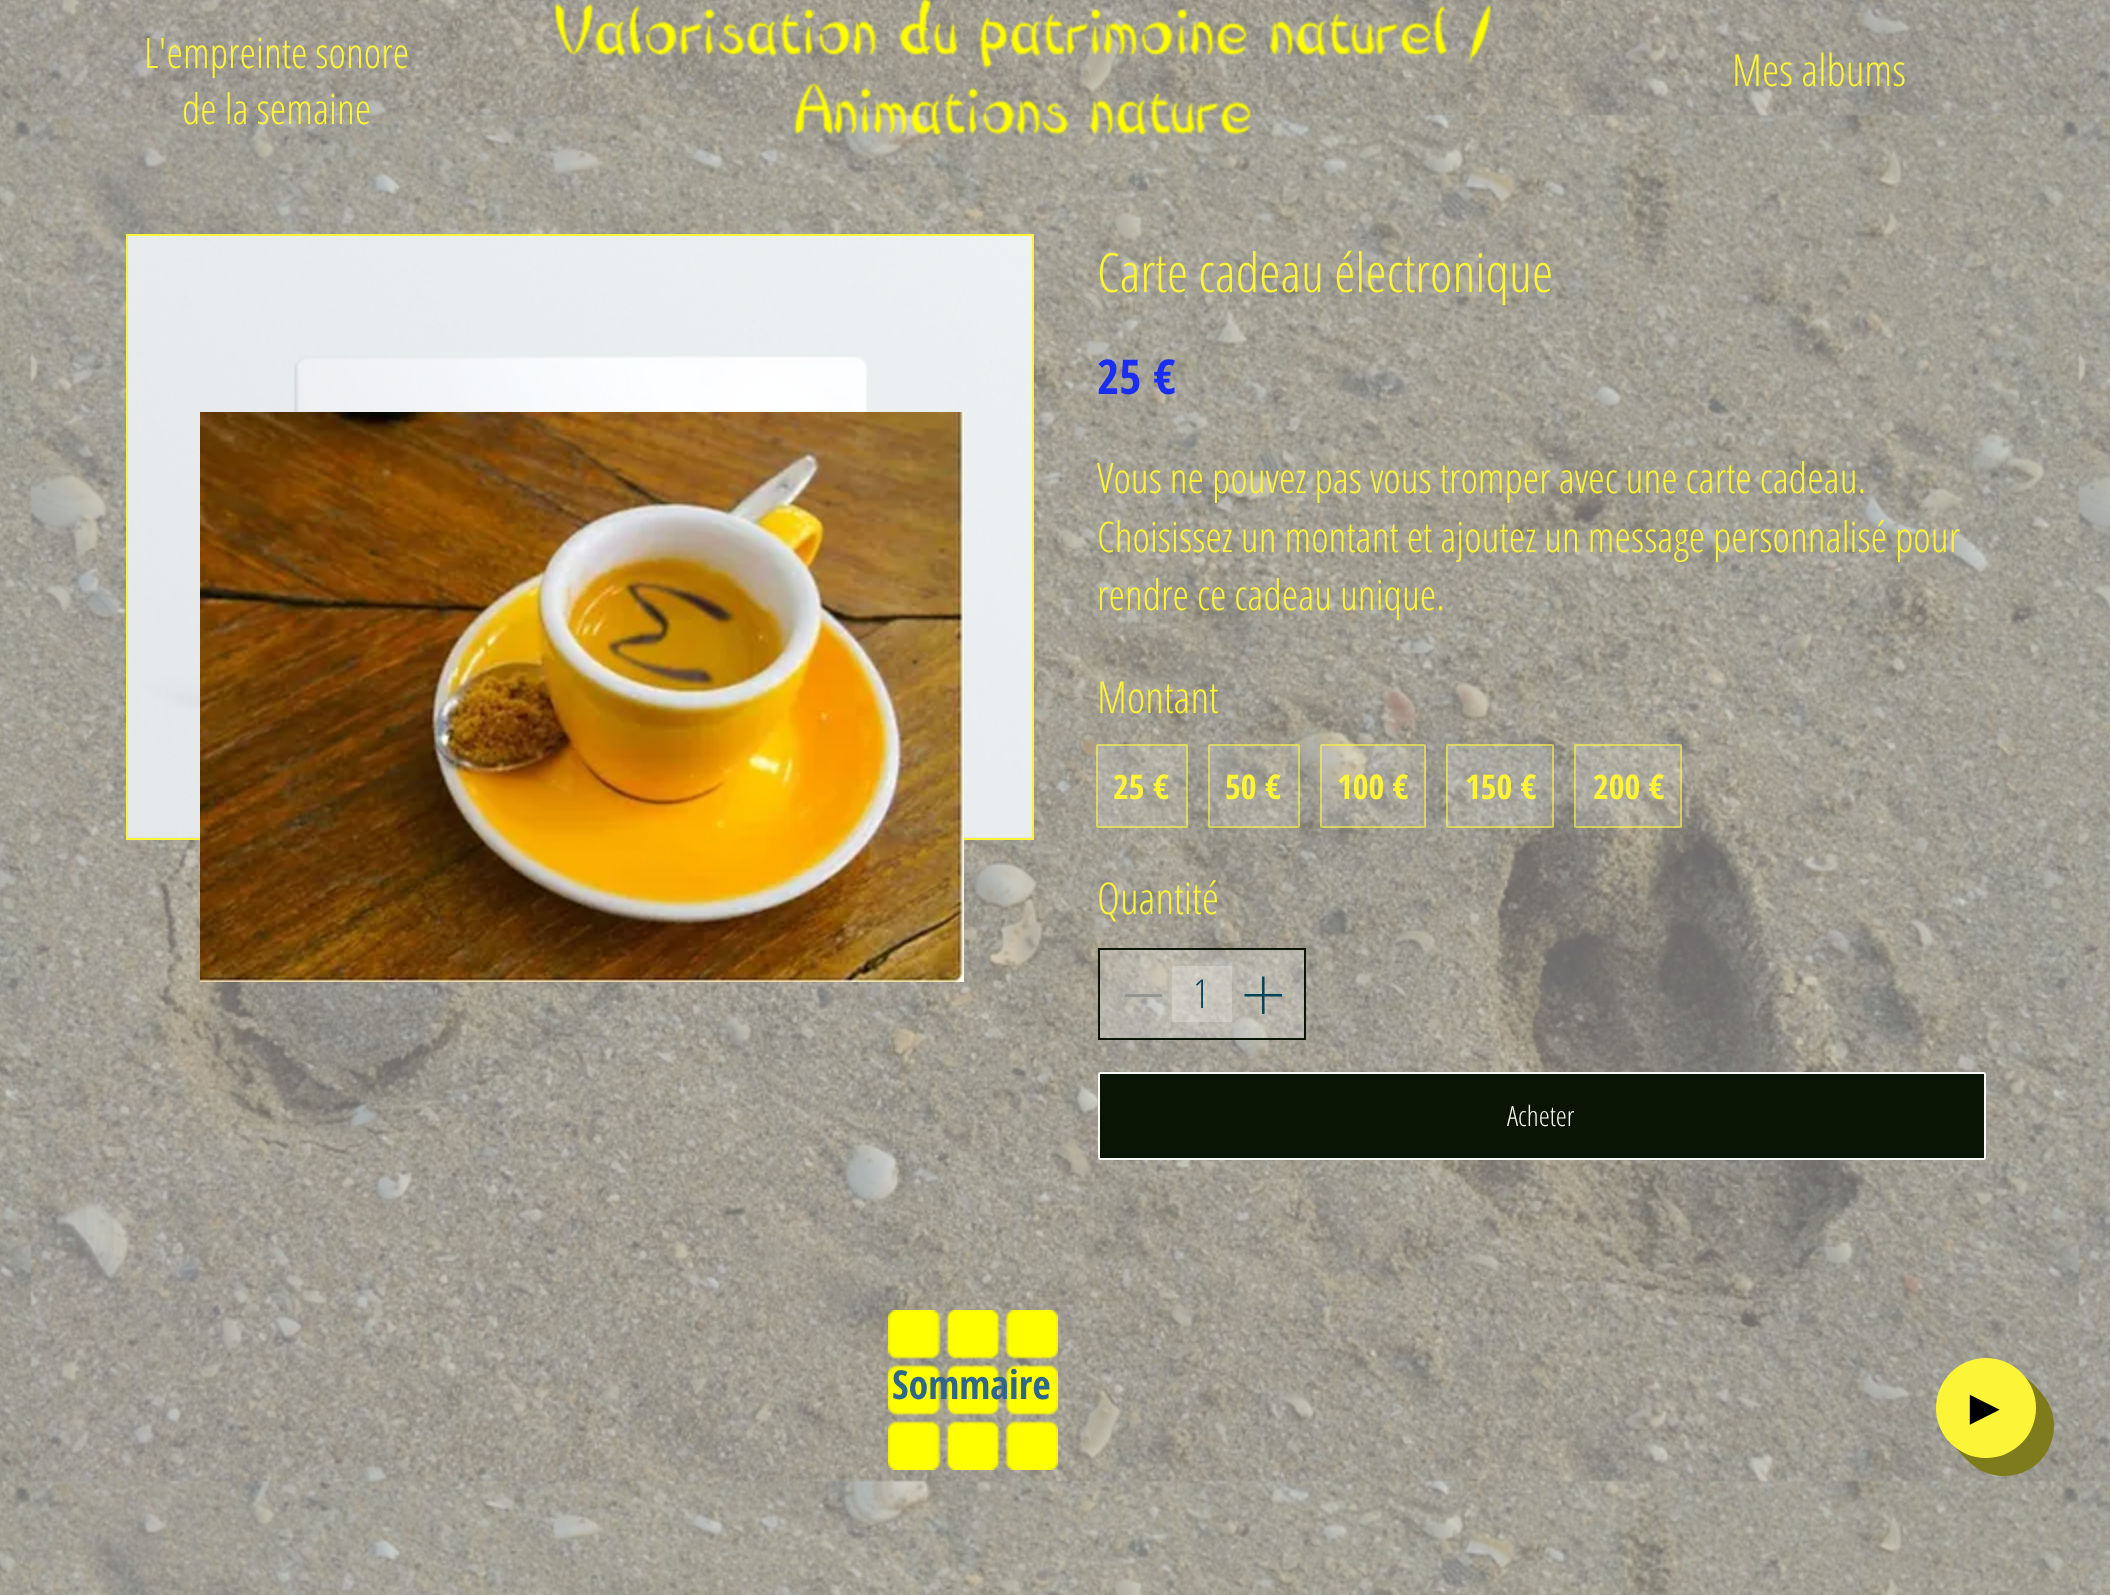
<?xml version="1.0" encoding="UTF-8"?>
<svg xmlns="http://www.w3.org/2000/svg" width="2110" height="1595">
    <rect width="100%" height="100%" fill="#C5C7C4"/>
    <image x="0" y="0" width="2110" height="1595" href="img_01.png"/>
    <text x="144" y="68" font-family="Open Sans Condensed" font-size="42" font-weight="300" fill="#FCF537">L'empreinte sonore</text>
    <text x="182" y="124" font-family="Open Sans Condensed" font-size="42" font-weight="300" fill="#FCF537">de la semaine</text>
    <image x="553" y="0" width="938" height="136" href="img_02.png"/>
    <text x="1732" y="86" font-family="Open Sans Condensed" font-size="44" font-weight="300" fill="#FCF537">Mes albums</text>
    <rect x="127" y="235" width="906" height="604" fill="none" stroke="#FCF537" stroke-width="2"/>
    <image x="128" y="236" width="904" height="602" href="img_04.png"/>
    <image x="200" y="412" width="764" height="570" href="img_03.png"/>
    <text x="1097" y="292" font-family="Open Sans Condensed" font-size="54" font-weight="300" fill="#FCF537">Carte cadeau électronique</text>
    <text x="1097" y="394" font-family="Open Sans Condensed" font-size="48" font-weight="700" fill="#1A2DF3">25 €</text>
    <text font-family="Open Sans Condensed" font-size="42" font-weight="300" fill="#FCF537">
        <tspan x="1097" y="493">Vous ne pouvez pas vous tromper avec une carte cadeau.</tspan>
        <tspan x="1097" y="552">Choisissez un montant et ajoutez un message personnalisé pour</tspan>
        <tspan x="1097" y="610">rendre ce cadeau unique.</tspan>
    </text>
    <text x="1097" y="713" font-family="Open Sans Condensed" font-size="44" font-weight="300" fill="#FCF537">Montant</text>
    <rect x="1096" y="744" width="92" height="84" rx="2" fill="#F6F9F5" fill-opacity="0.17"/>
    <rect x="1097" y="745" width="90" height="82" rx="1" fill="none" stroke="#FCF537" stroke-opacity="0.6" stroke-width="2"/>
    <text x="1113" y="799" font-family="Open Sans Condensed" font-size="34" font-weight="700" fill="#FCF537">25 €</text>
    <rect x="1208" y="744" width="92" height="84" rx="2" fill="#F6F9F5" fill-opacity="0.17"/>
    <rect x="1209" y="745" width="90" height="82" rx="1" fill="none" stroke="#FCF537" stroke-opacity="0.6" stroke-width="2"/>
    <text x="1225" y="799" font-family="Open Sans Condensed" font-size="34" font-weight="700" fill="#FCF537">50 €</text>
    <rect x="1320" y="744" width="106" height="84" rx="2" fill="#F6F9F5" fill-opacity="0.17"/>
    <rect x="1321" y="745" width="104" height="82" rx="1" fill="none" stroke="#FCF537" stroke-opacity="0.6" stroke-width="2"/>
    <text x="1337" y="799" font-family="Open Sans Condensed" font-size="34" font-weight="700" fill="#FCF537">100 €</text>
    <rect x="1446" y="744" width="108" height="84" rx="2" fill="#F6F9F5" fill-opacity="0.17"/>
    <rect x="1447" y="745" width="106" height="82" rx="1" fill="none" stroke="#FCF537" stroke-opacity="0.6" stroke-width="2"/>
    <text x="1465" y="799" font-family="Open Sans Condensed" font-size="34" font-weight="700" fill="#FCF537">150 €</text>
    <rect x="1574" y="744" width="108" height="84" rx="2" fill="#F6F9F5" fill-opacity="0.17"/>
    <rect x="1575" y="745" width="106" height="82" rx="1" fill="none" stroke="#FCF537" stroke-opacity="0.6" stroke-width="2"/>
    <text x="1593" y="799" font-family="Open Sans Condensed" font-size="34" font-weight="700" fill="#FCF537">200 €</text>
    <text x="1097" y="914" font-family="Open Sans Condensed" font-size="44" font-weight="300" fill="#FCF537">Quantité</text>
    <rect x="1099" y="949" width="206" height="90" fill="#F6F9F5" fill-opacity="0.27" stroke="#091405" stroke-width="2"/>
    <rect x="1125" y="994" width="37" height="3" fill="#949593"/>
    <rect x="1172" y="966" width="60" height="56" fill="#F6F9F5" fill-opacity="0.27"/>
    <text x="1193" y="1008" font-family="Open Sans Condensed" font-size="40" font-weight="300" fill="#034459">1</text>
    <path d="M 1264.5 976.5 V 994 H 1282 V 996.5 H 1264.5 V 1014 H 1262 V 996.5 H 1244.5 V 994 H 1262 V 976.5 Z" fill="#034459" fill-rule="evenodd"/>
    <rect x="1099" y="1073" width="886" height="86" rx="1" fill="#091405" stroke="#F6F9F5" stroke-width="2"/>
    <text x="1507" y="1126" font-family="Open Sans Condensed" font-size="28" font-weight="300" fill="#F6F9F5">Acheter</text>
    <image x="888" y="1310" width="170" height="160" href="img_05.png"/>
    <text x="892" y="1399" font-family="Open Sans Condensed" font-size="40" font-weight="700" fill="#2F678A">Sommaire</text>
    <path d="M 1961 1451 C 1969 1466 1986 1476 2004 1476 C 2032 1476 2054 1454 2054 1426 C 2054 1408 2044 1391 2029 1383 C 2055 1427 2005 1477 1961 1451 Z" fill="#7E7B1C"/>
    <path d="M 1958 1450 C 1976 1476 2013 1480 2035 1457 C 2058 1435 2054 1398 2028 1380 C 2058 1425 2003 1480 1958 1450 Z" fill="#7E7B1C"/>
    <path d="M 1956 1448 C 1974 1472 2010 1475 2031 1453 C 2053 1432 2050 1396 2026 1378 C 2041 1398 2039 1426 2021 1443 C 2004 1461 1976 1463 1956 1448 Z" fill="#7E7B1C"/>
    <path d="M 1954 1446 C 1972 1468 2007 1470 2027 1449 C 2048 1429 2046 1394 2024 1376 C 2041 1395 2040 1425 2021 1443 C 2003 1462 1973 1463 1954 1446 Z" fill="#7E7B1C"/>
    <path d="M 1952 1444 C 1971 1464 2004 1465 2023 1445 C 2043 1426 2042 1393 2022 1374 C 2041 1393 2040 1424 2021 1443 C 2002 1462 1971 1463 1952 1444 Z" fill="#7E7B1C"/>
    <circle cx="1986" cy="1408" r="50" fill="#FCF537"/>
    <text x="1960" y="1424" font-family="Liberation Sans" font-size="50" font-weight="700" fill="#000000">►</text>
</svg>
